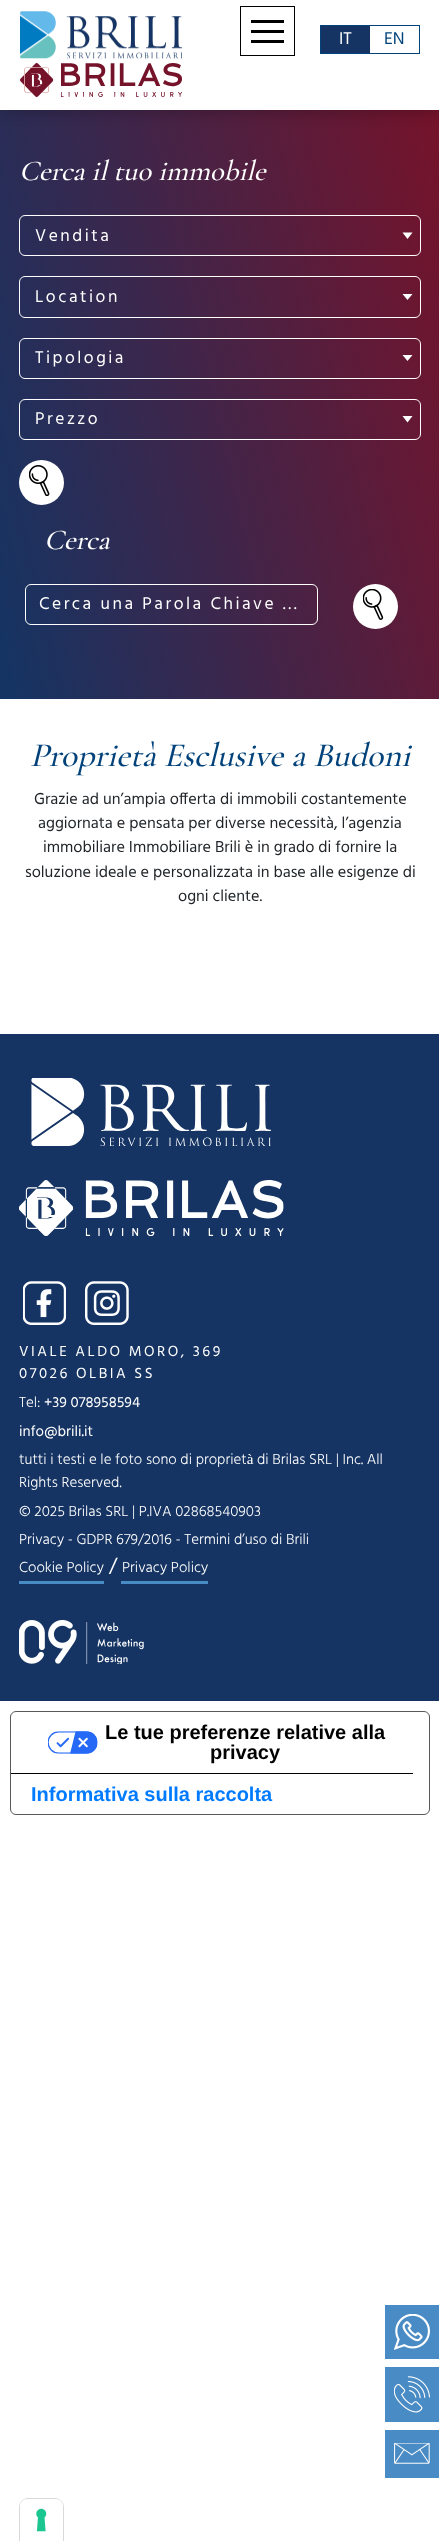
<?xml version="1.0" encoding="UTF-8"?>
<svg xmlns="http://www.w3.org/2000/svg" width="439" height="2541">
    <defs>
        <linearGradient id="g1" gradientUnits="userSpaceOnUse" x1="-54" y1="465" x2="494" y2="339"><stop offset="0.02" stop-color="#153463"/><stop offset="0.99" stop-color="#75132B"/></linearGradient>
        <filter id="blur1" x="-50%" y="-200%" width="200%" height="500%"><feGaussianBlur stdDeviation="9.5"/></filter>
    </defs>
    <rect width="100%" height="100%" fill="#FFFFFF"/>
    <rect x="0" y="110" width="439" height="589" fill="url(#g1)"/>
    <rect x="0" y="0" width="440" height="110" fill="#000000" fill-opacity="0.3" filter="url(#blur1)"/>
    <rect x="0" y="0" width="439" height="110" fill="#FFFFFF"/>
    <image x="20" y="11" width="163" height="49" href="img_01.png"/>
    <rect x="240.5" y="6.5" width="54" height="49" fill="none" stroke="#000000"/>
    <rect x="251" y="20" width="33" height="3" fill="#000000"/>
    <rect x="251" y="30" width="33" height="3" fill="#000000"/>
    <rect x="251" y="40" width="33" height="3" fill="#000000"/>
    <image x="20" y="63" width="162" height="34" href="img_02.png"/>
    <rect x="320.5" y="25.5" width="99" height="28" fill="none" stroke="#01427A"/>
    <rect x="321" y="26" width="49" height="27" fill="#153463"/>
    <text x="339" y="44" font-family="Hind" font-size="17.5" fill="#FFFFFF">IT</text>
    <text x="384" y="44" font-family="Hind" font-size="17.5" fill="#01427A">EN</text>
    <text x="19" y="180" font-family="Cormorant Garamond" font-size="28.75" font-weight="500" font-style="italic" fill="#FFFFFF">Cerca il tuo immobile</text>
    <rect x="19.5" y="215.5" width="401" height="40" rx="5.5" fill="none" stroke="#FFFFFF"/>
    <text x="35" y="241" font-family="Hind" font-size="17.5" letter-spacing="2.5" fill="#FFFFFF">Vendita</text>
    <path d="M 402.5 232.5 H 412.5 L 407.5 239 Z" fill="#FFFFFF"/>
    <rect x="19.5" y="276.5" width="401" height="41" rx="5.5" fill="none" stroke="#FFFFFF"/>
    <text x="35" y="302" font-family="Hind" font-size="17.5" letter-spacing="2.5" fill="#FFFFFF">Location</text>
    <path d="M 402.5 294 H 412.5 L 407.5 300 Z" fill="#FFFFFF"/>
    <rect x="19.5" y="338.5" width="401" height="40" rx="5.5" fill="none" stroke="#FFFFFF"/>
    <text x="35" y="363" font-family="Hind" font-size="17.5" letter-spacing="2.5" fill="#FFFFFF">Tipologia</text>
    <path d="M 402.5 355 H 412.5 L 407.5 361 Z" fill="#FFFFFF"/>
    <rect x="19.5" y="399.5" width="401" height="40" rx="5.5" fill="none" stroke="#FFFFFF"/>
    <text x="35" y="424" font-family="Hind" font-size="17.5" letter-spacing="2.5" fill="#FFFFFF">Prezzo</text>
    <path d="M 402.5 416 H 412.5 L 407.5 422.5 Z" fill="#FFFFFF"/>
    <circle cx="41.5" cy="482.5" r="22.5" fill="#FFFFFF"/>
    <image x="29" y="465" width="21" height="31" href="img_03.png"/>
    <text x="44" y="549" font-family="Cormorant Garamond" font-size="28.75" font-weight="500" font-style="italic" fill="#FFFFFF">Cerca</text>
    <rect x="25.5" y="584.5" width="292" height="40" rx="5.5" fill="none" stroke="#FFFFFF"/>
    <text x="39" y="609" font-family="Hind" font-size="17.5" letter-spacing="2.5" fill="#FFFFFF">Cerca una Parola Chiave ...</text>
    <circle cx="375.5" cy="606.5" r="22.5" fill="#FFFFFF"/>
    <image x="363" y="589" width="21" height="31" href="img_04.png"/>
    <text x="30" y="766" font-family="Cormorant Garamond" font-size="34" font-weight="500" font-style="italic" fill="#01427A">Proprietà Esclusive a Budoni</text>
    <text x="34" y="804" font-family="Hind" font-size="16.25" fill="#212529">Grazie ad un’ampia offerta di immobili costantemente</text>
    <text x="38" y="828" font-family="Hind" font-size="16.25" fill="#212529">aggiornata e pensata per diverse necessità, l’agenzia</text>
    <text x="43" y="852" font-family="Hind" font-size="16.25" fill="#212529">immobiliare Immobiliare Brili è in grado di fornire la</text>
    <text x="25" y="877" font-family="Hind" font-size="16.25" fill="#212529">soluzione ideale e personalizzata in base alle esigenze di</text>
    <text x="178" y="901" font-family="Hind" font-size="16.25" fill="#212529">ogni cliente.</text>
    <rect x="385" y="2305" width="54" height="54" fill="#498BC4"/>
    <image x="394" y="2314" width="36" height="36" href="img_05.png"/>
    <rect x="385" y="2367" width="54" height="55" fill="#498BC4"/>
    <image x="394" y="2376" width="36" height="37" href="img_06.png"/>
    <rect x="385" y="2430" width="54" height="48" fill="#498BC4"/>
    <image x="394" y="2443" width="36" height="21" href="img_07.png"/>
    <rect x="0" y="1034" width="439" height="667" fill="#153463"/>
    <image x="31" y="1078" width="240" height="68" href="img_08.png"/>
    <image x="19" y="1180" width="265" height="56" href="img_09.png"/>
    <image x="23" y="1281" width="43" height="44" href="img_10.png"/>
    <image x="85" y="1281" width="44" height="44" href="img_11.png"/>
    <text font-family="Hind" font-size="15" letter-spacing="2.5" fill="#FFFFFF">
        <tspan x="19" y="1356">VIALE ALDO MORO, 369</tspan>
        <tspan x="19" y="1378">07026 OLBIA SS</tspan>
    </text>
    <text x="19" y="1407" font-family="Hind" font-size="15" font-weight="300" fill="#FFFFFF">Tel:</text>
    <text x="44" y="1407" font-family="Hind" font-size="15" fill="#FFFFFF">+39 078958594</text>
    <text x="19" y="1436" font-family="Hind" font-size="15" fill="#FFFFFF">info@brili.it</text>
    <text font-family="Hind" font-size="15" font-weight="300" fill="#FFFFFF">
        <tspan x="19" y="1464">tutti i testi e le foto sono di proprietà di Brilas SRL | Inc. All</tspan>
        <tspan x="19" y="1487">Rights Reserved.</tspan>
        <tspan x="19" y="1516">© 2025 Brilas SRL | P.IVA 02868540903</tspan>
        <tspan x="19" y="1544">Privacy - GDPR 679/2016 - Termini d’uso di Brili</tspan>
        <tspan x="19" y="1572">Cookie Policy</tspan>
    </text>
    <rect x="19" y="1581" width="85" height="3" fill="#498BC4"/>
    <text x="109" y="1572" font-family="Hind" font-size="20" fill="#FFFFFF">/</text>
    <text x="122" y="1572" font-family="Hind" font-size="15" font-weight="300" fill="#FFFFFF">Privacy Policy</text>
    <rect x="121" y="1581" width="87" height="3" fill="#498BC4"/>
    <image x="19" y="1620" width="125" height="44" href="img_12.png"/>
    <rect x="10.5" y="1711.5" width="419" height="103" rx="5.5" fill="none" stroke="#595959"/>
    <rect x="11" y="1773" width="402" height="1" fill="#000000"/>
    <image x="48" y="1731" width="50" height="23" href="img_13.png"/>
    <text x="105" y="1739" font-family="Liberation Sans" font-size="20" font-weight="700" fill="#000000">Le tue preferenze relative alla</text>
    <text x="210" y="1759" font-family="Liberation Sans" font-size="20" font-weight="700" fill="#000000">privacy</text>
    <text x="31" y="1801" font-family="Liberation Sans" font-size="20" font-weight="700" fill="#007BFF">Informativa sulla raccolta</text>
    <path d="M 28 2498.5 H 55 C 59.5 2498.5 63.5 2502.5 63.5 2507 V 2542.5 H 19.5 V 2507 C 19.5 2502.5 23.5 2498.5 28 2498.5 Z" fill="none" stroke="#D9D9D9"/>
    <path d="M 28 2499 H 55 C 59.5 2499 63 2502.5 63 2507 V 2541 H 20 V 2507 C 20 2502.5 23.5 2499 28 2499 Z" fill="#FFFFFF"/>
    <image x="36" y="2508" width="11" height="24" href="img_14.png"/>
</svg>
